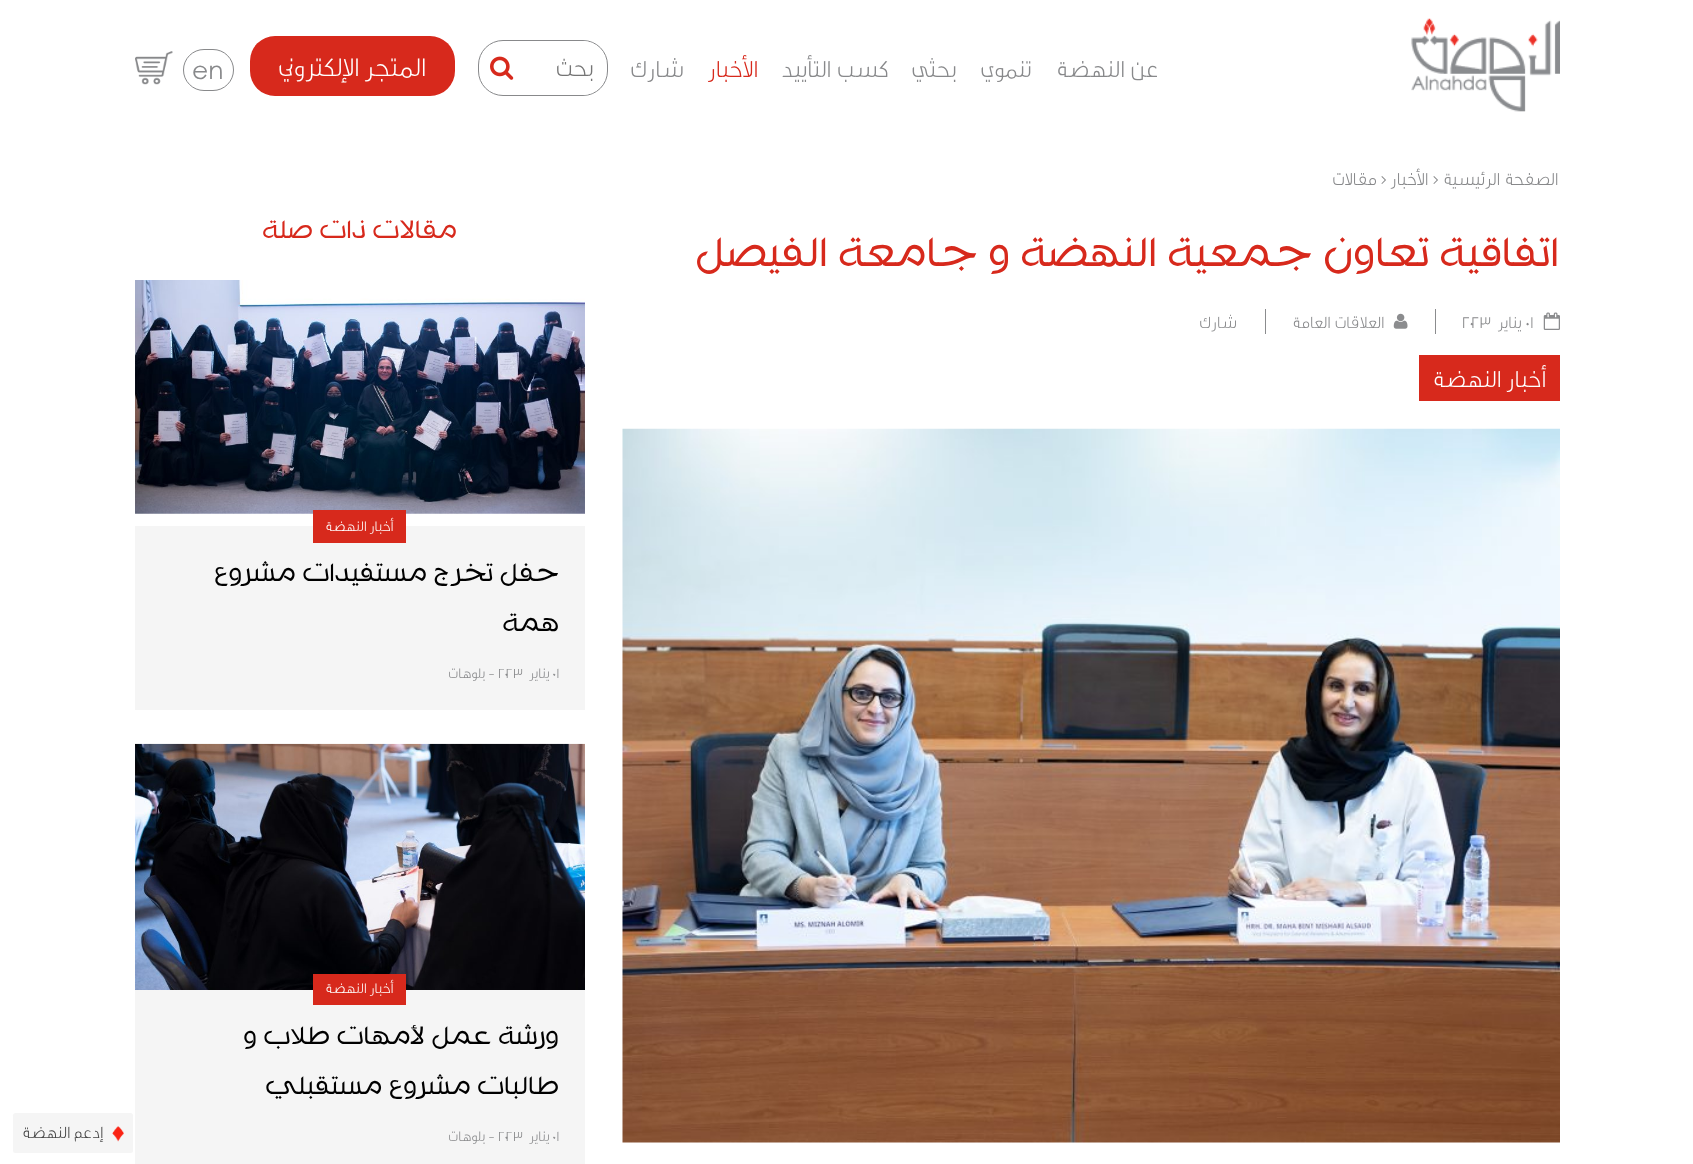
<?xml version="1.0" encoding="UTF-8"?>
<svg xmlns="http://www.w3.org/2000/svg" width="1693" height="1164">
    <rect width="100%" height="100%" fill="#FFFFFF"/>
    <image x="1411" y="18" width="149" height="94" href="img_01.png"/>
    <text x="1159" y="77" font-family="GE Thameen" font-size="25" direction="rtl" fill="#88898B">عن النهضة</text>
    <text x="1032" y="77" font-family="GE Thameen" font-size="25" direction="rtl" fill="#88898B">تنموي</text>
    <text x="957" y="77" font-family="GE Thameen" font-size="25" direction="rtl" fill="#88898B">بحثي</text>
    <text x="889" y="77" font-family="GE Thameen" font-size="25" direction="rtl" fill="#88898B">كسب التأييد</text>
    <text x="759" y="77" font-family="GE Thameen" font-size="25" direction="rtl" fill="#D7291C">الأخبار</text>
    <text x="684" y="77" font-family="GE Thameen" font-size="25" direction="rtl" fill="#88898B">شارك</text>
    <rect x="478.5" y="40.5" width="129" height="55" rx="24.5" fill="none" stroke="#88898B"/>
    <path d="M 525 41 H 582 C 595.5 41 606 51.5 606 65 V 71 C 606 84.5 595.5 95 582 95 H 525 Z" fill="#FFFFFF"/>
    <text x="594" y="76" font-family="GE Thameen" font-size="25" direction="rtl" fill="#757575">بحث</text>
    <image x="490" y="56" width="24" height="24" href="img_02.png"/>
    <rect x="250" y="36" width="205" height="60" rx="25" fill="#D7291C"/>
    <text x="427" y="76" font-family="GE Thameen" font-size="27.5" direction="rtl" fill="#FFFFFF">المتجر الإلكتروني</text>
    <rect x="183.5" y="49.5" width="50" height="41" rx="20.5" fill="none" stroke="#88898B"/>
    <text x="192" y="79" font-family="Century Gothic" font-size="25" fill="#88898B">en</text>
    <image x="135" y="51" width="38" height="34" href="img_03.png"/>
    <text x="1559" y="185" font-family="GE Thameen" font-size="18.75" direction="rtl" fill="#88898B">الصفحة الرئيسية</text>
    <text x="1432" y="185" font-family="GE Thameen" font-size="18.75" fill="#88898B">&gt;</text>
    <text x="1429" y="185" font-family="GE Thameen" font-size="18.75" direction="rtl" fill="#88898B">الأخبار</text>
    <text x="1380" y="185" font-family="GE Thameen" font-size="18.75" fill="#88898B">&gt;</text>
    <text x="1377" y="185" font-family="GE Thameen" font-size="18.75" direction="rtl" fill="#88898B">مقالات</text>
    <text x="1559" y="266" font-family="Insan" font-size="56.25" direction="rtl" fill="#D7291C">اتفاقية تعاون جمعية النهضة و جامعة الفيصل</text>
    <rect x="1435" y="309" width="1" height="25" fill="#8B8C8E"/>
    <image x="1543" y="312" width="17" height="18" href="img_04.png"/>
    <text x="1525" y="328" font-family="GE Thameen" font-size="17.5" fill="#88898B">٠١</text>
    <text x="1522" y="328" font-family="GE Thameen" font-size="17.5" direction="rtl" fill="#88898B">يناير</text>
    <text x="1462" y="328" font-family="GE Thameen" font-size="17.5" fill="#88898B">٢٠٢٣</text>
    <rect x="1265" y="309" width="1" height="25" fill="#8B8C8E"/>
    <image x="1393" y="313" width="15" height="16" href="img_05.png"/>
    <text x="1385" y="328" font-family="GE Thameen" font-size="17.5" direction="rtl" fill="#88898B">العلاقات العامة</text>
    <text x="1237" y="328" font-family="GE Thameen" font-size="17.5" direction="rtl" fill="#88898B">شارك</text>
    <rect x="1419" y="355" width="141" height="46" fill="#D7291C"/>
    <text x="1547" y="387" font-family="GE Thameen" font-size="25" direction="rtl" fill="#FFFFFF">أخبار النهضة</text>
    <image x="622" y="428" width="938" height="715" href="img_06.png"/>
    <text x="457" y="238" font-family="Insan" font-size="35" direction="rtl" fill="#D7291C">مقالات ذات صلة</text>
    <image x="135" y="280" width="450" height="234" href="img_07.png"/>
    <rect x="135" y="526" width="450" height="184" fill="#F5F5F5"/>
    <rect x="313" y="510" width="93" height="33" fill="#D7291C"/>
    <text x="394" y="531" font-family="GE Thameen" font-size="15" direction="rtl" fill="#FFFFFF">أخبار النهضة</text>
    <text font-family="Insan" font-size="35" direction="rtl" fill="#000000">
        <tspan x="559" y="581">حفل تخرج مستفيدات مشروع</tspan>
        <tspan x="559" y="631">همة</tspan>
    </text>
    <text x="552" y="678" font-family="GE Thameen" font-size="15" fill="#88898B">٠١</text>
    <text x="550" y="678" font-family="GE Thameen" font-size="15" direction="rtl" fill="#88898B">يناير</text>
    <text x="498" y="678" font-family="GE Thameen" font-size="15" fill="#88898B">٢٠٢٣</text>
    <text x="495" y="678" font-family="GE Thameen" font-size="15" direction="rtl" fill="#88898B">- بلوهات</text>
    <image x="135" y="743" width="450" height="247" href="img_08.png"/>
    <rect x="135" y="990" width="450" height="174" fill="#F5F5F5"/>
    <rect x="313" y="974" width="93" height="31" fill="#D7291C"/>
    <text x="394" y="993" font-family="GE Thameen" font-size="15" direction="rtl" fill="#FFFFFF">أخبار النهضة</text>
    <text font-family="Insan" font-size="35" direction="rtl" fill="#000000">
        <tspan x="559" y="1044">ورشة عمل لأمهات طلاب و</tspan>
        <tspan x="559" y="1094">طالبات مشروع مستقبلي</tspan>
    </text>
    <text x="552" y="1141" font-family="GE Thameen" font-size="15" fill="#88898B">٠١</text>
    <text x="550" y="1141" font-family="GE Thameen" font-size="15" direction="rtl" fill="#88898B">يناير</text>
    <text x="498" y="1141" font-family="GE Thameen" font-size="15" fill="#88898B">٢٠٢٣</text>
    <text x="495" y="1141" font-family="GE Thameen" font-size="15" direction="rtl" fill="#88898B">- بلوهات</text>
    <rect x="13" y="1113" width="120" height="40" rx="2.5" fill="#F5F5F5"/>
    <image x="112" y="1126" width="12" height="16" href="img_09.png"/>
    <text x="104" y="1138" font-family="GE Thameen" font-size="17.5" direction="rtl" fill="#444444">إدعم النهضة</text>
</svg>
